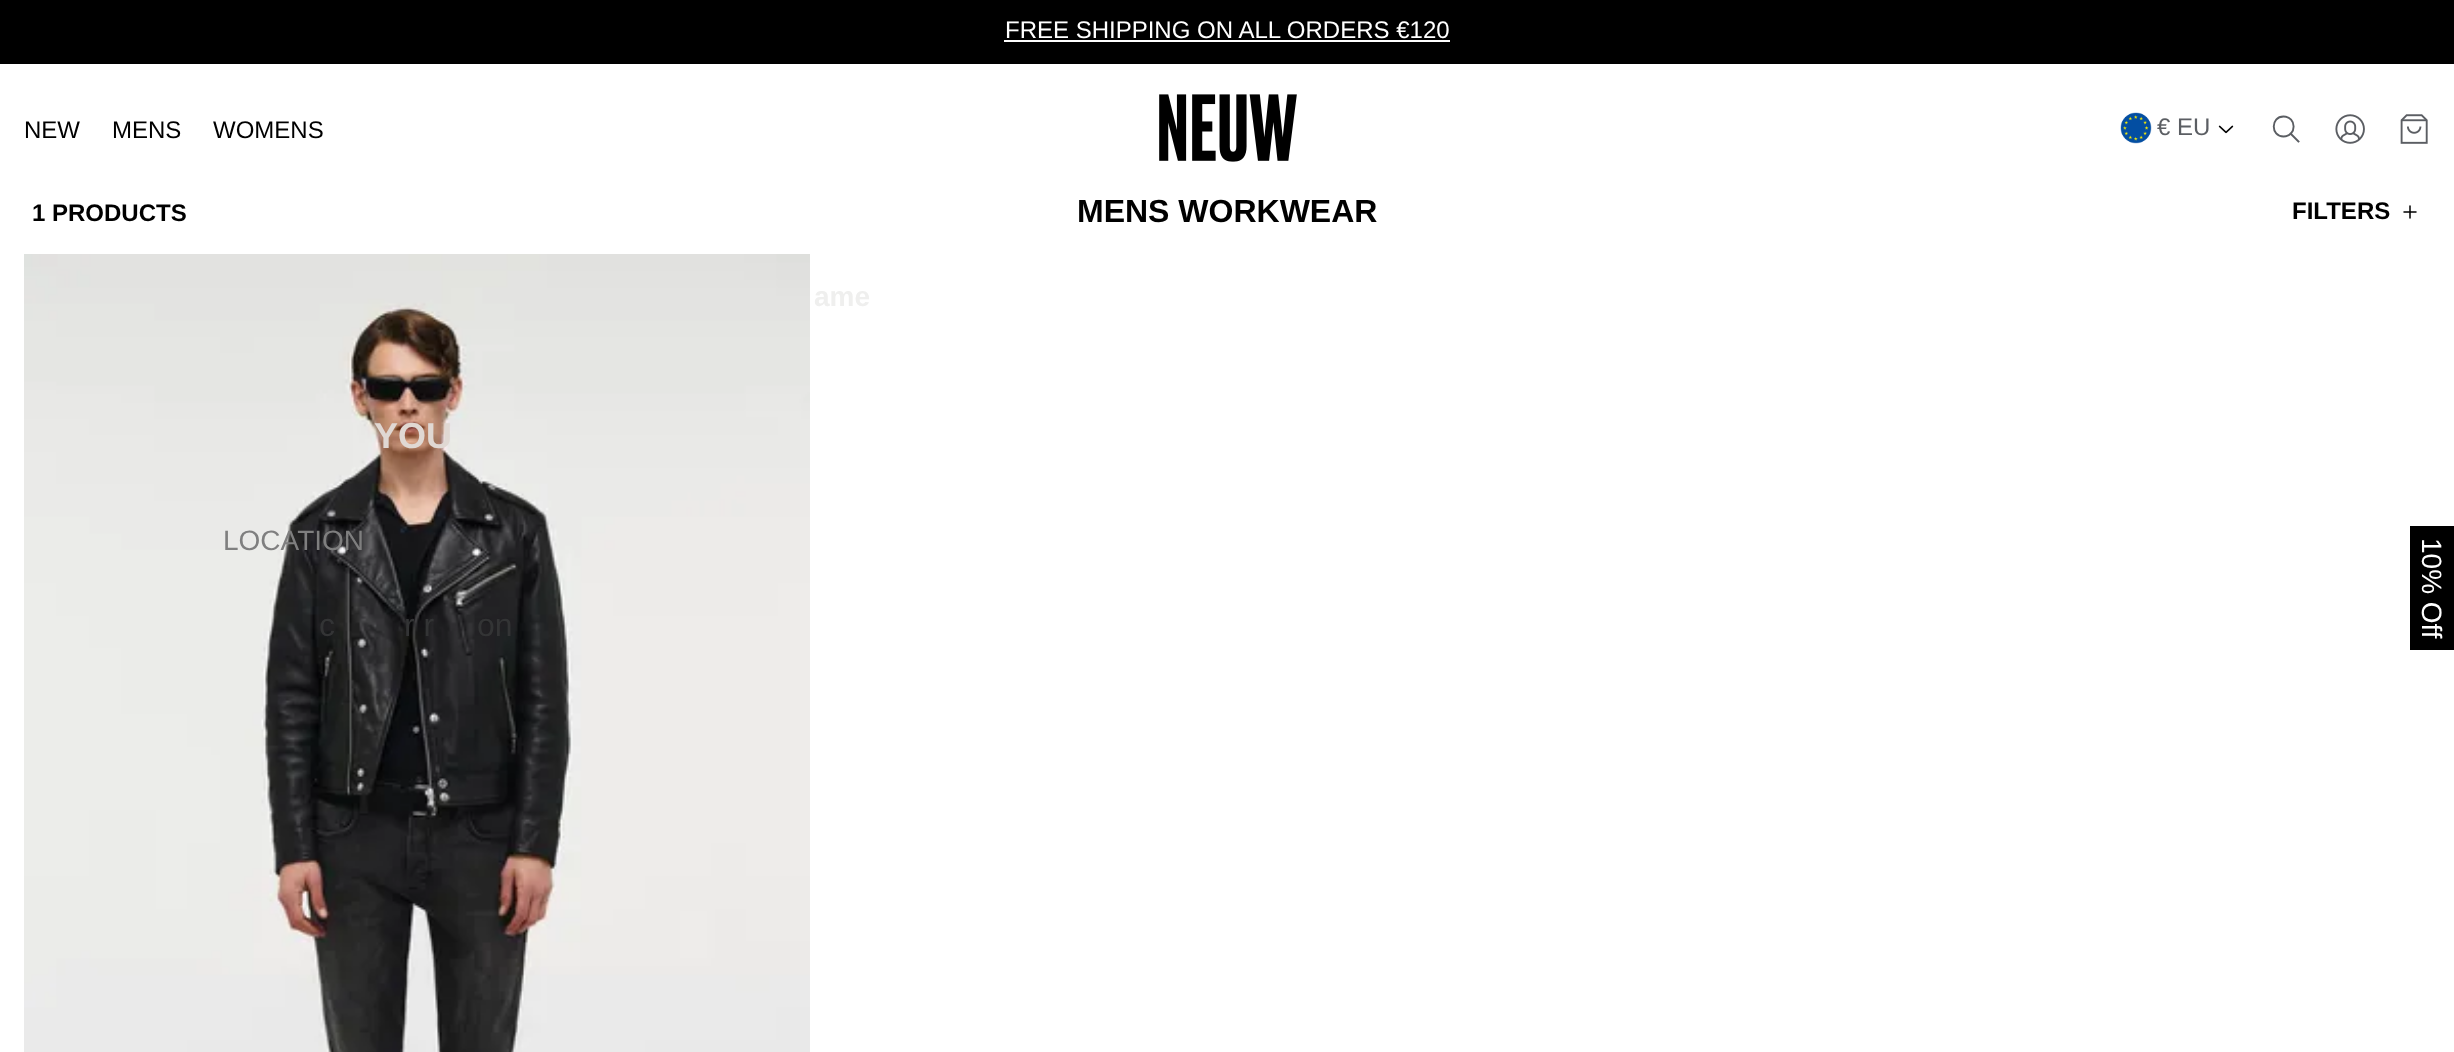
<?xml version="1.0" encoding="UTF-8"?>
<svg xmlns="http://www.w3.org/2000/svg" width="2454" height="1052">
    <rect width="100%" height="100%" fill="#FFFFFF"/>
    <rect x="0" y="0" width="2454" height="64" fill="#000000"/>
    <text x="1005" y="38" font-family="Liberation Sans" font-size="24" fill="#FFFFFF">FREE SHIPPING ON ALL ORDERS €120</text>
    <rect x="1004" y="40" width="446" height="2" fill="#FFFFFF"/>
    <text x="24" y="138" font-family="Liberation Sans" font-size="24" fill="#000000">NEW</text>
    <text x="112" y="138" font-family="Liberation Sans" font-size="24" fill="#000000">MENS</text>
    <text x="213" y="138" font-family="Liberation Sans" font-size="24" fill="#000000">WOMENS</text>
    <image x="1159" y="94" width="138" height="68" href="img_01.png"/>
    <image x="2120" y="112" width="32" height="32" href="img_02.png"/>
    <text x="2157" y="135" font-family="Liberation Sans" font-size="24" fill="#5B5E63">€ EU</text>
    <image x="2218" y="125" width="16" height="9" href="img_03.png"/>
    <path d="M 2298.5 141.5 L 2290.5 133.5 M 2283.5 136.5 C 2297 136.5 2297 116.5 2283.5 116.5 C 2270.5 116.5 2270.5 136.5 2283.5 136.5 Z" fill="none" stroke="#5B5E63" stroke-width="1.9" stroke-linecap="square"/>
    <image x="2335" y="114" width="30" height="30" href="img_04.png"/>
    <image x="2400" y="114" width="28" height="30" href="img_05.png"/>
    <text x="32" y="221" font-family="Liberation Sans" font-size="24" font-weight="700" fill="#000000">1 PRODUCTS</text>
    <text x="1077" y="222" font-family="Liberation Sans" font-size="32" font-weight="700" fill="#000000">MENS WORKWEAR</text>
    <text x="2292" y="219" font-family="Liberation Sans" font-size="24" font-weight="700" fill="#000000">FILTERS</text>
    <path d="M 2404 212 H 2416 M 2410 206 V 218" fill="none" stroke="#000000" stroke-width="1.5" stroke-linecap="round"/>
    <image x="24" y="254" width="786" height="798" href="img_06.png"/>
    <rect x="2410" y="526" width="44" height="124" fill="#000000"/>
    <text x="2422" y="538" transform="rotate(90 2422 538)" font-family="Liberation Sans" font-size="28" fill="#FFFFFF">10% Off</text>
    <text x="814" y="306" font-family="Liberation Sans" font-size="28" font-weight="700" fill="#EFEFEE">ame</text>
    <text x="374" y="448" font-family="Liberation Sans" font-size="36" font-weight="700" fill="#E0D8D3">YOU</text>
    <text x="223" y="550" font-family="Liberation Sans" font-size="28" fill="#7F7F7F">LOCATION</text>
    <text x="319" y="636" font-family="Liberation Sans" font-size="32" fill="#333435">c</text>
    <text x="404" y="636" font-family="Liberation Sans" font-size="32" fill="#333435">r r</text>
    <text x="477" y="636" font-family="Liberation Sans" font-size="32" fill="#333435">on</text>
</svg>
